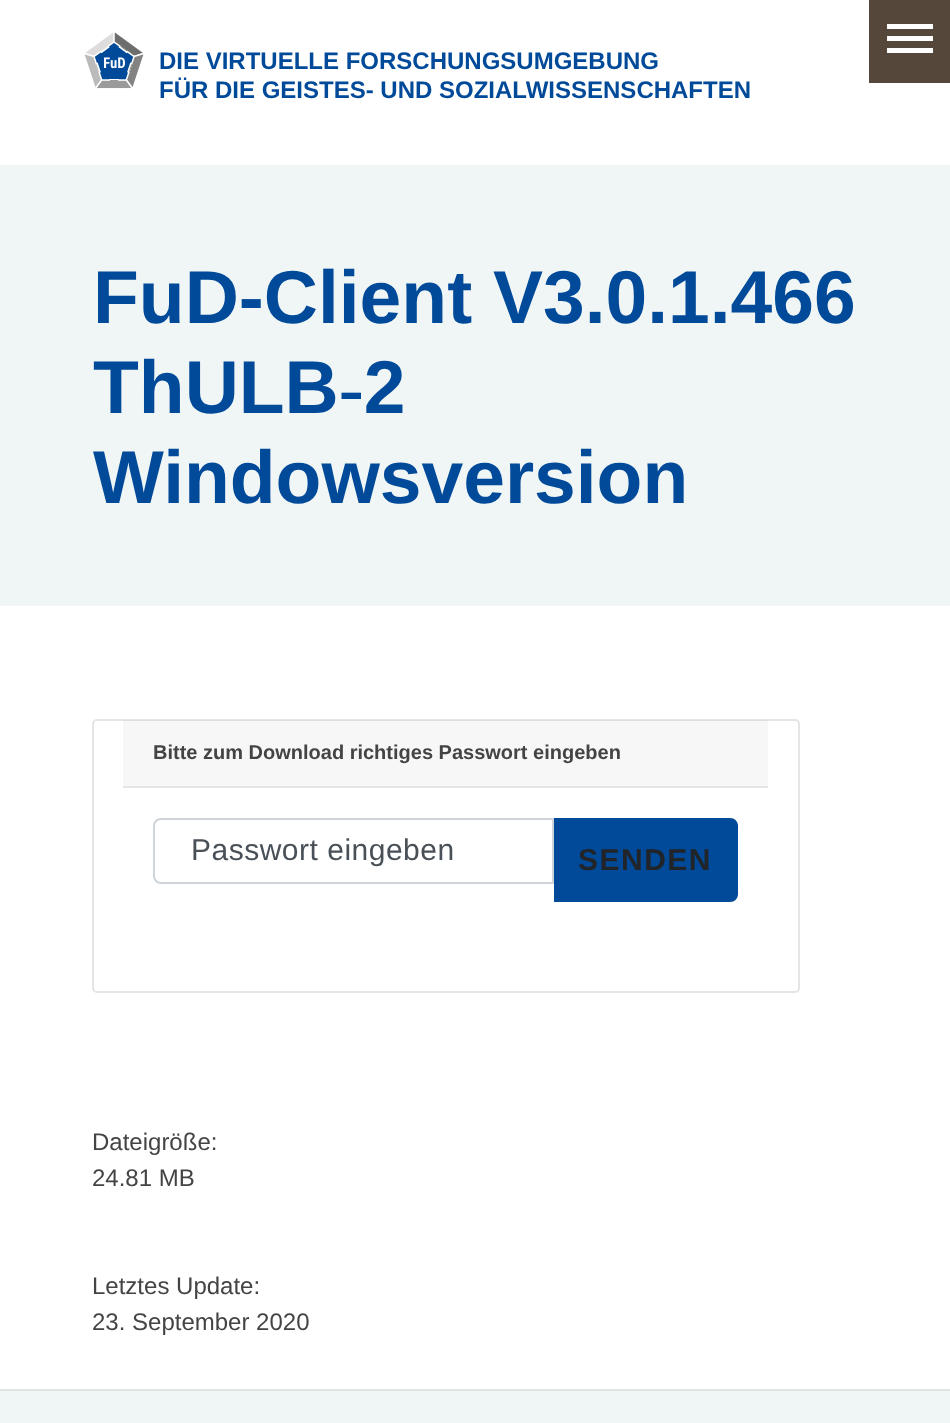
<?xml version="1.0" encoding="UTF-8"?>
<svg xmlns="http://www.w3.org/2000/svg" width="950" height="1423">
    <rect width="100%" height="100%" fill="#FFFFFF"/>
    <image x="84" y="32" width="60" height="57" href="img_01.png"/>
    <text font-family="Liberation Sans" font-size="24" font-weight="700" fill="#004A99">
        <tspan x="159" y="69">DIE VIRTUELLE FORSCHUNGSUMGEBUNG</tspan>
        <tspan x="159" y="98">FÜR DIE GEISTES- UND SOZIALWISSENSCHAFTEN</tspan>
    </text>
    <rect x="869" y="0" width="81" height="83" fill="#56473B"/>
    <rect x="887" y="36" width="46" height="5" fill="#FFFFFF"/>
    <rect x="887" y="24" width="46" height="5" fill="#FFFFFF"/>
    <rect x="887" y="48" width="46" height="5" fill="#FFFFFF"/>
    <rect x="0" y="165" width="950" height="441" fill="#F0F5F6"/>
    <text font-family="Liberation Sans" font-size="75" font-weight="700" fill="#004A99">
        <tspan x="93" y="323">FuD-Client V3.0.1.466</tspan>
        <tspan x="93" y="413">ThULB‑2</tspan>
        <tspan x="93" y="503">Windowsversion</tspan>
    </text>
    <rect x="93" y="720" width="706" height="272" rx="4" fill="none" stroke="#E5E5E5" stroke-width="2"/>
    <rect x="123" y="720" width="645" height="66" fill="#000000" fill-opacity="0.03"/>
    <rect x="123" y="786" width="645" height="2" fill="#E5E5E5"/>
    <text x="153" y="759" font-family="Liberation Sans" font-size="20" font-weight="700" fill="#444444">Bitte zum Download richtiges Passwort eingeben</text>
    <path d="M 161 819 H 553 V 883 H 161 C 157 883 154 880 154 876 V 826 C 154 822 157 819 161 819 Z" fill="none" stroke="#CED4DA" stroke-width="2"/>
    <text x="191" y="860" font-family="Liberation Sans" font-size="30" letter-spacing="0.5" fill="#495057">Passwort eingeben</text>
    <path d="M 554 818 H 730 C 734.5 818 738 821.5 738 826 V 894 C 738 898.5 734.5 902 730 902 H 554 Z" fill="#004A99"/>
    <text x="578" y="870" font-family="Liberation Sans" font-size="30" font-weight="700" letter-spacing="1.5" fill="#212529">SENDEN</text>
    <text font-family="Liberation Sans" font-size="24" fill="#444444">
        <tspan x="92" y="1150">Dateigröße:</tspan>
        <tspan x="92" y="1186">24.81 MB</tspan>
    </text>
    <text font-family="Liberation Sans" font-size="24" fill="#444444">
        <tspan x="92" y="1294">Letztes Update:</tspan>
        <tspan x="92" y="1330">23. September 2020</tspan>
    </text>
    <rect x="0" y="1391" width="950" height="32" fill="#F0F5F6"/>
    <rect x="0" y="1389" width="950" height="2" fill="#DFE4E5"/>
</svg>
